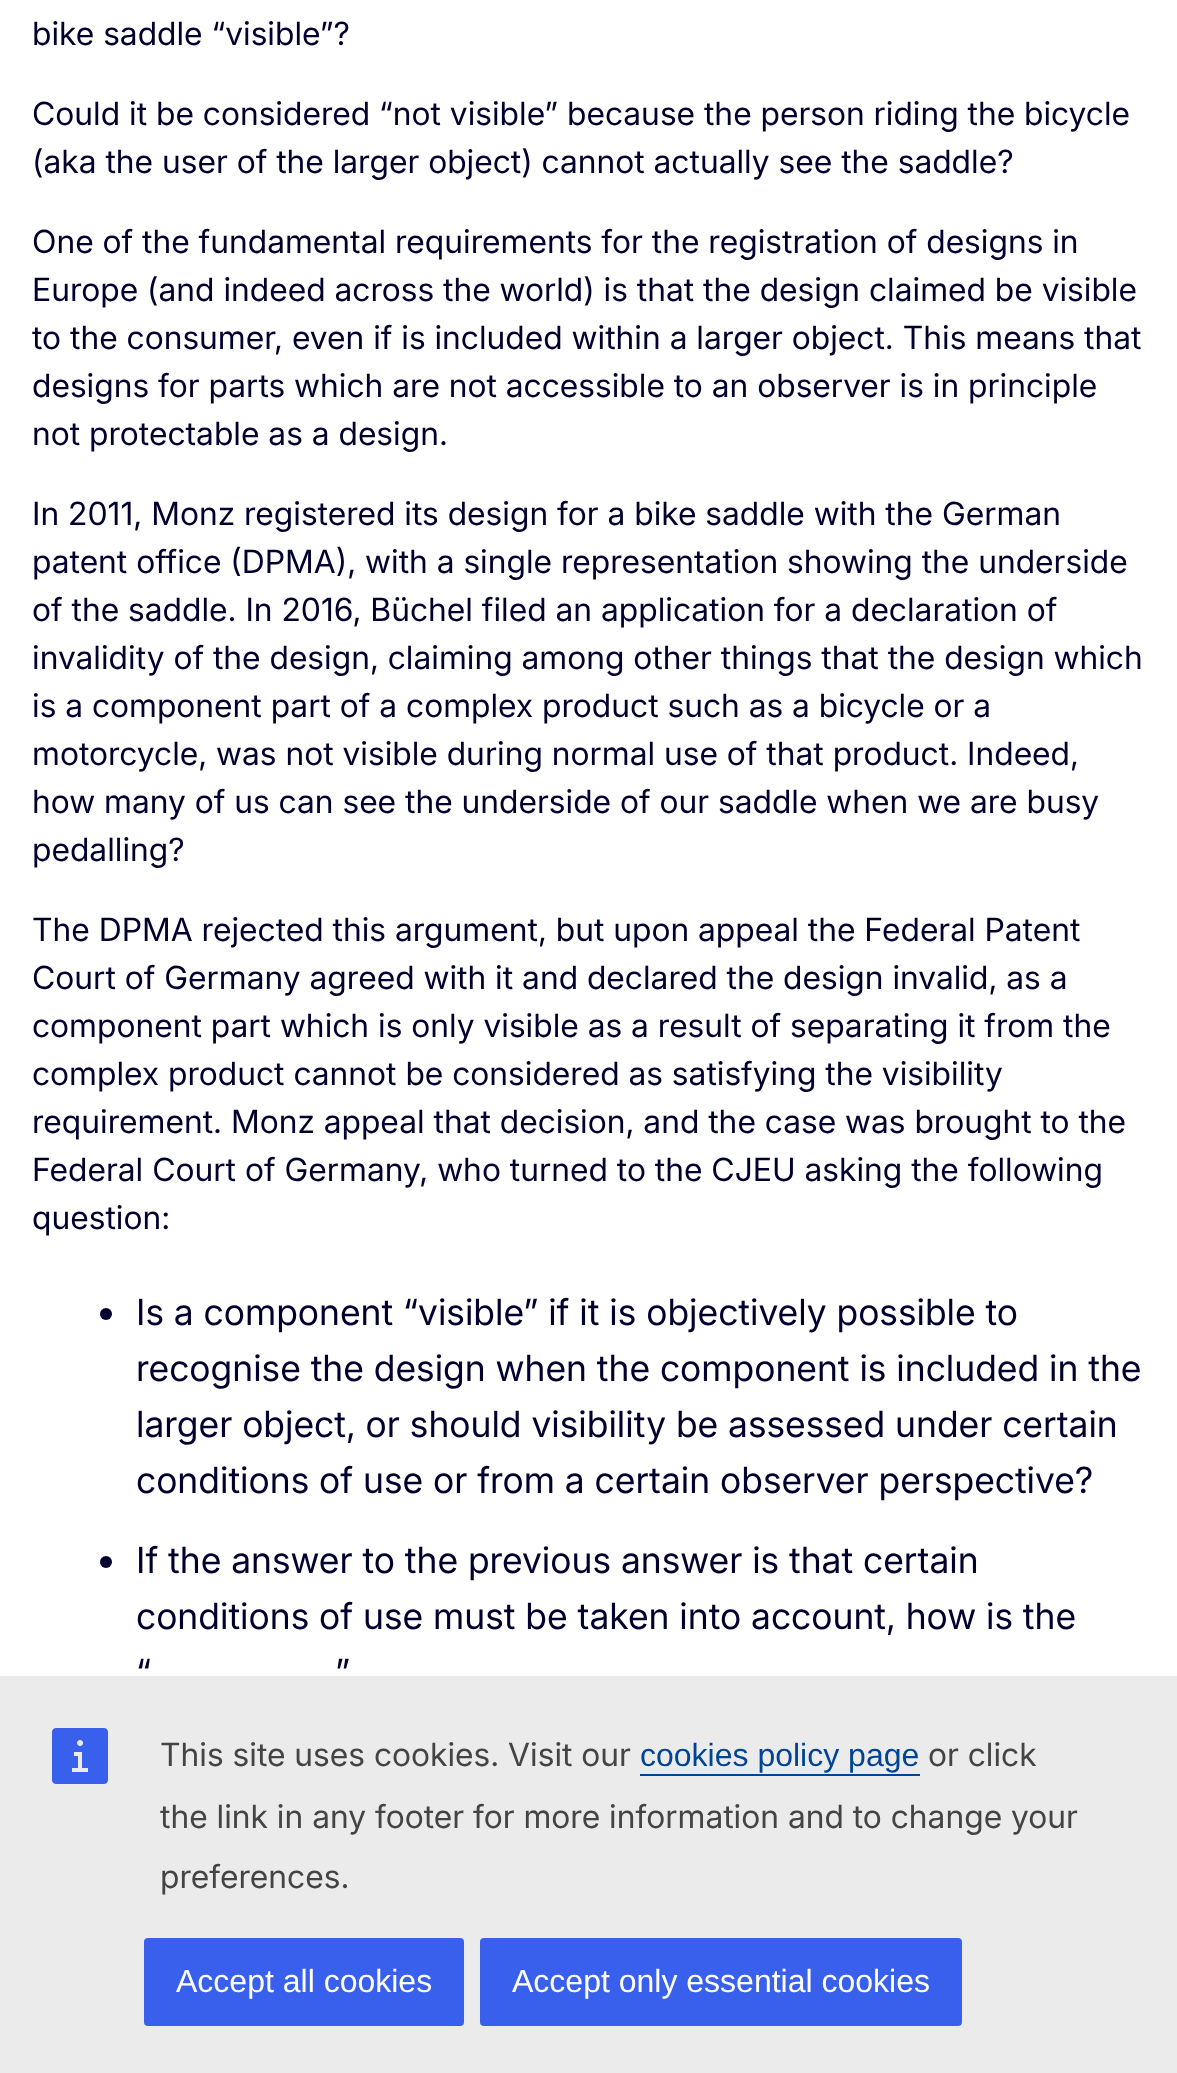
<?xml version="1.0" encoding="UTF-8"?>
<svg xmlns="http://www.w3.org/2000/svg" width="1177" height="2073">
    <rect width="100%" height="100%" fill="#FFFFFF"/>
    <text x="32" y="45" font-family="Inter" font-size="32" fill="#00002E">bike saddle “visible”?</text>
    <text font-family="Inter" font-size="32" fill="#00002E">
        <tspan x="32" y="125">Could it be considered “not visible” because the person riding the bicycle</tspan>
        <tspan x="32" y="173">(aka the user of the larger object) cannot actually see the saddle?</tspan>
    </text>
    <text font-family="Inter" font-size="32" fill="#00002E">
        <tspan x="32" y="253">One of the fundamental requirements for the registration of designs in</tspan>
        <tspan x="32" y="301">Europe (and indeed across the world) is that the design claimed be visible</tspan>
        <tspan x="32" y="349">to the consumer, even if is included within a larger object. This means that</tspan>
        <tspan x="32" y="397">designs for parts which are not accessible to an observer is in principle</tspan>
        <tspan x="32" y="445">not protectable as a design.</tspan>
    </text>
    <text font-family="Inter" font-size="32" fill="#00002E">
        <tspan x="32" y="525">In 2011, Monz registered its design for a bike saddle with the German</tspan>
        <tspan x="32" y="573">patent office (DPMA), with a single representation showing the underside</tspan>
        <tspan x="32" y="621">of the saddle. In 2016, Büchel filed an application for a declaration of</tspan>
        <tspan x="32" y="669">invalidity of the design, claiming among other things that the design which</tspan>
        <tspan x="32" y="717">is a component part of a complex product such as a bicycle or a</tspan>
        <tspan x="32" y="765">motorcycle, was not visible during normal use of that product. Indeed,</tspan>
        <tspan x="32" y="813">how many of us can see the underside of our saddle when we are busy</tspan>
        <tspan x="32" y="861">pedalling?</tspan>
    </text>
    <text font-family="Inter" font-size="32" fill="#00002E">
        <tspan x="32" y="941">The DPMA rejected this argument, but upon appeal the Federal Patent</tspan>
        <tspan x="32" y="989">Court of Germany agreed with it and declared the design invalid, as a</tspan>
        <tspan x="32" y="1037">component part which is only visible as a result of separating it from the</tspan>
        <tspan x="32" y="1085">complex product cannot be considered as satisfying the visibility</tspan>
        <tspan x="32" y="1133">requirement. Monz appeal that decision, and the case was brought to the</tspan>
        <tspan x="32" y="1181">Federal Court of Germany, who turned to the CJEU asking the following</tspan>
        <tspan x="32" y="1229">question:</tspan>
    </text>
    <circle cx="106" cy="1314" r="6" fill="#00002E"/>
    <text font-family="'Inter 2'" font-size="36" fill="#00002E">
        <tspan x="136" y="1325">Is a component “visible” if it is objectively possible to</tspan>
        <tspan x="136" y="1381">recognise the design when the component is included in the</tspan>
        <tspan x="136" y="1437">larger object, or should visibility be assessed under certain</tspan>
        <tspan x="136" y="1493">conditions of use or from a certain observer perspective?</tspan>
    </text>
    <circle cx="106" cy="1562" r="6" fill="#00002E"/>
    <text font-family="'Inter 2'" font-size="36" fill="#00002E">
        <tspan x="136" y="1573">If the answer to the previous answer is that certain</tspan>
        <tspan x="136" y="1629">conditions of use must be taken into account, how is the</tspan>
        <tspan x="136" y="1685">“</tspan>
    </text>
    <text x="335" y="1685" font-family="'Inter 2'" font-size="36" fill="#00002E">”</text>
    <rect x="0" y="1676" width="1177" height="397" fill="#EBEBEB"/>
    <image x="52" y="1728" width="56" height="56" href="img_01.png"/>
    <text x="160" y="1766" font-family="Inter" font-size="32" fill="#444444">This site uses cookies. Visit our</text>
    <text x="640" y="1766" font-family="Liberation Sans" font-size="32" fill="#004494">cookies policy page</text>
    <rect x="640" y="1774" width="280" height="2" fill="#004494"/>
    <text x="928" y="1766" font-family="Inter" font-size="32" fill="#444444">or click</text>
    <text font-family="Inter" font-size="32" fill="#444444">
        <tspan x="160" y="1828">the link in any footer for more information and to change your</tspan>
        <tspan x="160" y="1888">preferences.</tspan>
    </text>
    <rect x="144" y="1938" width="320" height="88" rx="4" fill="#3860ED"/>
    <text x="176" y="1992" font-family="Liberation Sans" font-size="32" fill="#FFFFFF">Accept all cookies</text>
    <rect x="480" y="1938" width="482" height="88" rx="4" fill="#3860ED"/>
    <text x="512" y="1992" font-family="Liberation Sans" font-size="32" fill="#FFFFFF">Accept only essential cookies</text>
</svg>
